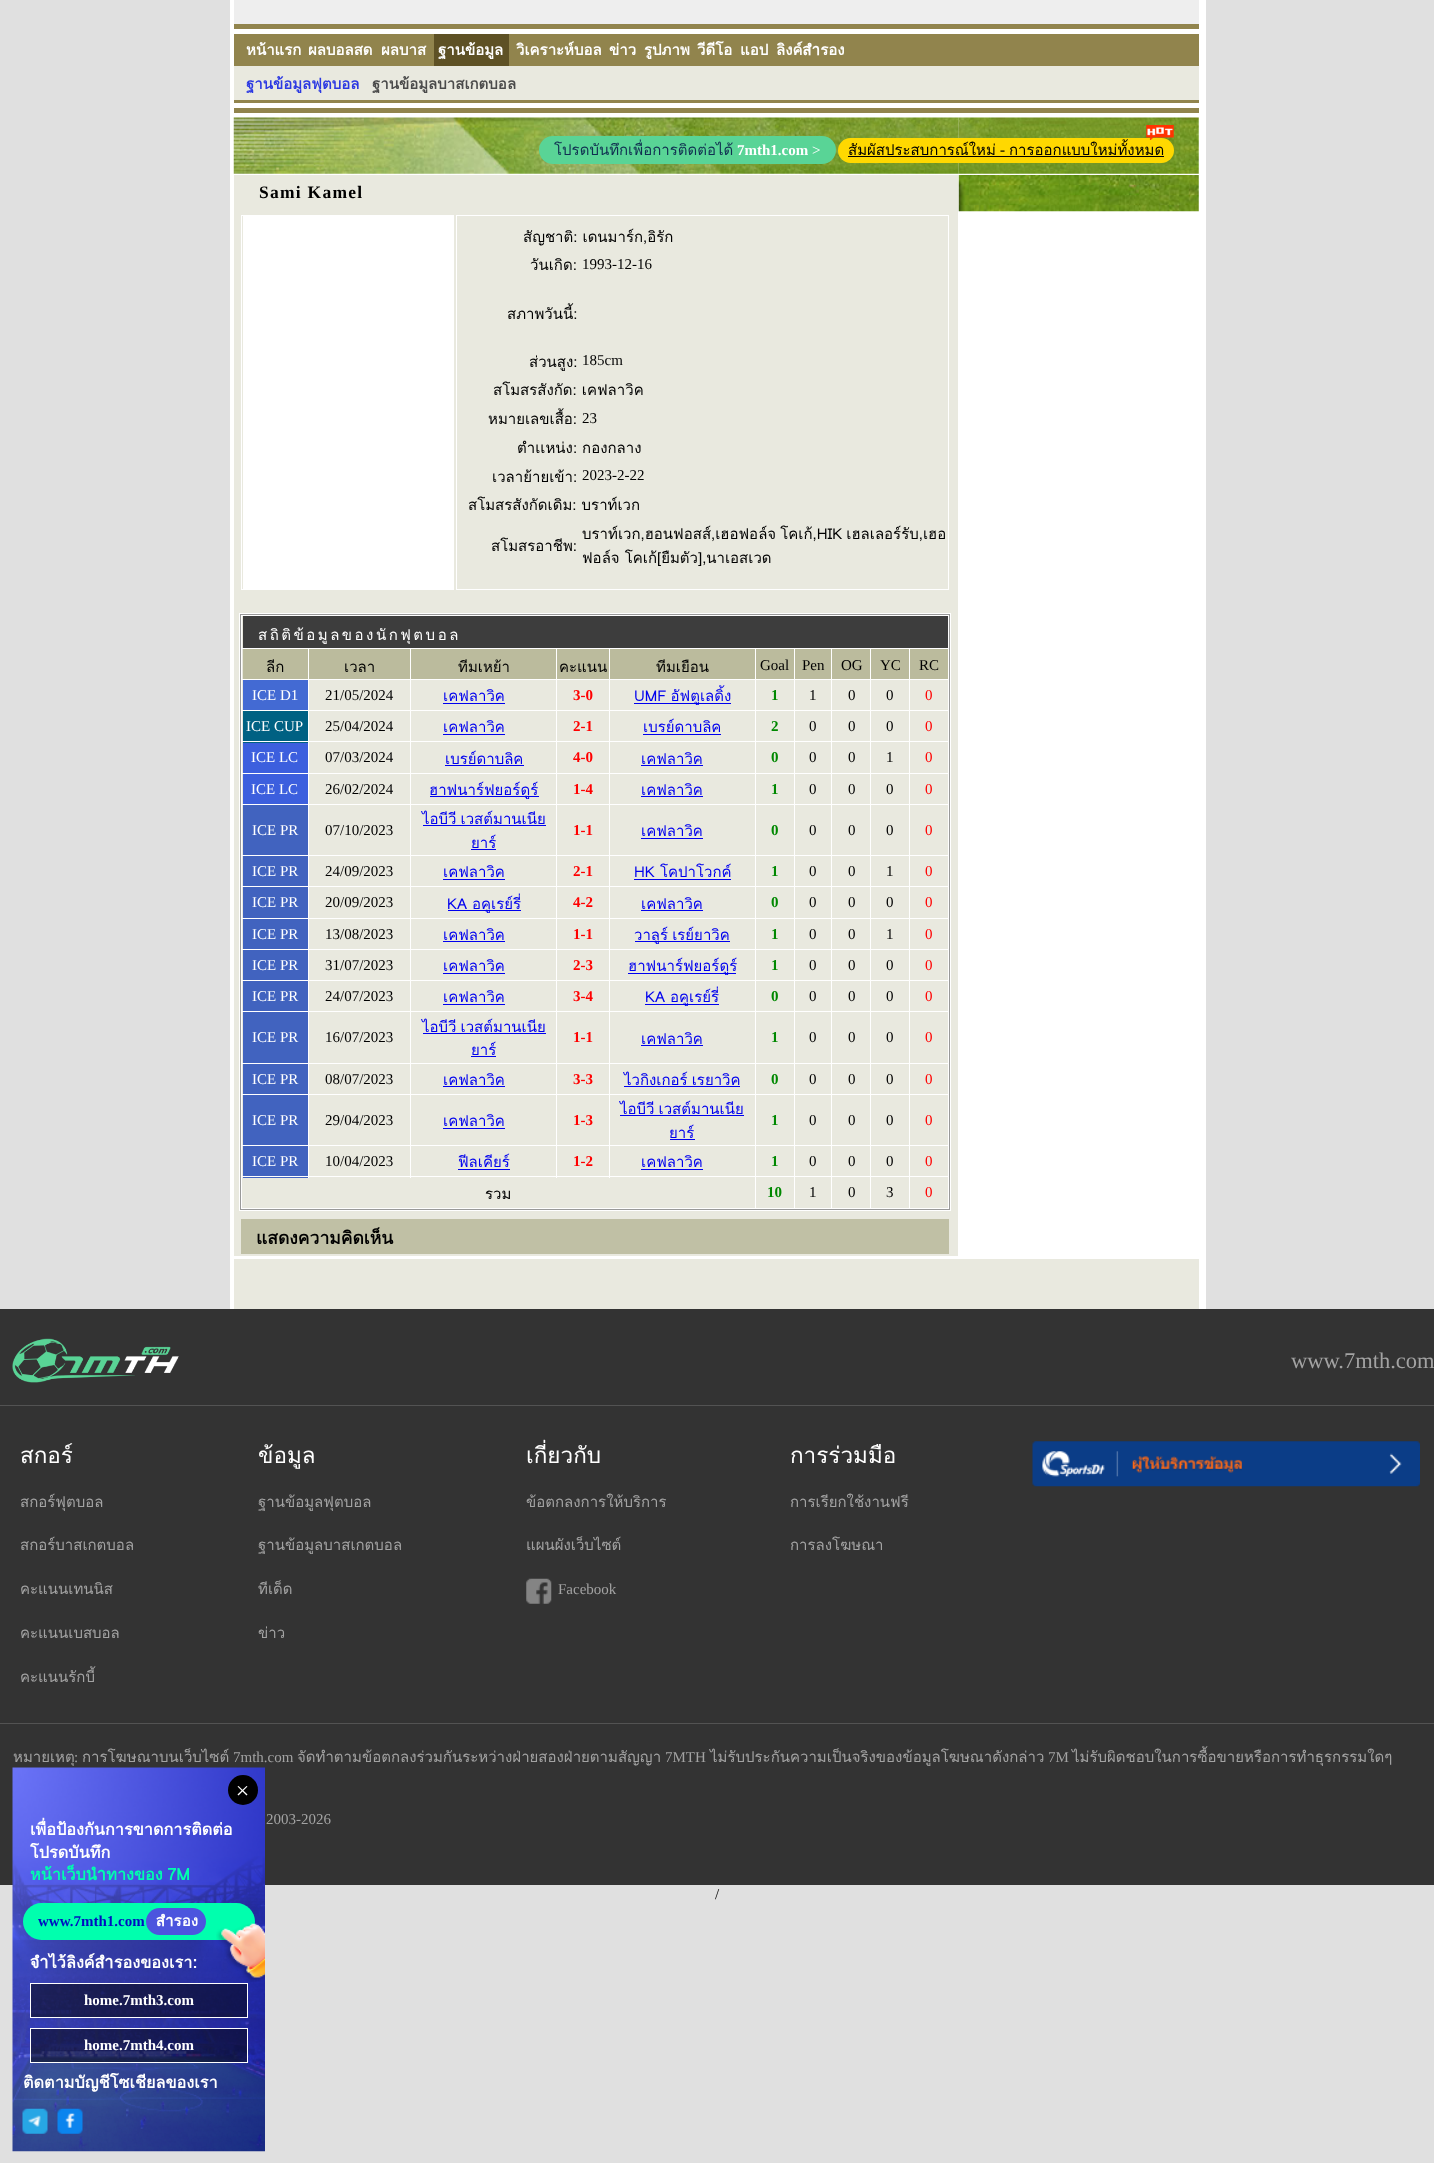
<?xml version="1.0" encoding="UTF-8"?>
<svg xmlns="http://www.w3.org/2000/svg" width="1434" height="2163">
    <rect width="100%" height="100%" fill="#E0E0E0"/>
    <rect x="230" y="0" width="976" height="1309" fill="#FFFFFF"/>
    <rect x="234" y="0" width="965" height="24" fill="#EEEEEE"/>
    <rect x="234" y="24" width="965" height="5" fill="#91844D"/>
    <rect x="234" y="34" width="965" height="69" fill="#91844D"/>
    <text x="246" y="55" font-family="Loma" font-size="15" font-weight="700" fill="#FFFFFF">หน้าแรก</text>
    <text x="308" y="55" font-family="Loma" font-size="15" font-weight="700" fill="#FFFFFF">ผลบอลสด</text>
    <text x="381" y="55" font-family="Loma" font-size="15" font-weight="700" fill="#FFFFFF">ผลบาส</text>
    <rect x="434" y="34" width="75" height="32" fill="#5E5125"/>
    <text x="438" y="55" font-family="Loma" font-size="15" font-weight="700" fill="#FFFFFF">ฐานข้อมูล</text>
    <text x="516" y="55" font-family="Loma" font-size="15" font-weight="700" fill="#FFFFFF">วิเคราะห์บอล</text>
    <text x="609" y="55" font-family="Loma" font-size="15" font-weight="700" fill="#FFFFFF">ข่าว</text>
    <text x="644" y="55" font-family="Loma" font-size="15" font-weight="700" fill="#FFFFFF">รูปภาพ</text>
    <text x="697" y="55" font-family="Loma" font-size="15" font-weight="700" fill="#FFFFFF">วีดีโอ</text>
    <text x="740" y="55" font-family="Loma" font-size="15" font-weight="700" fill="#FFFFFF">แอป</text>
    <text x="776" y="55" font-family="Loma" font-size="15" font-weight="700" fill="#FFFFFF">ลิงค์สำรอง</text>
    <rect x="234" y="66" width="965" height="34" fill="#E9E9DF"/>
    <text x="246" y="89" font-family="Loma" font-size="15" font-weight="700" fill="#2C39E2">ฐานข้อมูลฟุตบอล</text>
    <text x="372" y="89" font-family="Loma" font-size="15" font-weight="700" fill="#4B4B4B">ฐานข้อมูลบาสเกตบอล</text>
    <rect x="234" y="108" width="965" height="5" fill="#91844D"/>
    <image x="233" y="117" width="726" height="57" href="img_01.png"/>
    <image x="958" y="117" width="241" height="57" href="img_02.png"/>
    <rect x="539" y="136" width="297" height="28" rx="14" fill="#59D496"/>
    <text x="554" y="155" font-family="Loma" font-size="15" fill="#102F51">โปรดบันทึกเพื่อการติดต่อได้</text>
    <text x="737" y="155" font-family="Liberation Serif" font-size="15" font-weight="700" fill="#FFFFFF">7mth1.com</text>
    <text x="812" y="155" font-family="Liberation Serif" font-size="15" fill="#FFFFFF">&gt;</text>
    <rect x="838" y="138" width="336" height="25" rx="12.5" fill="#FFD800"/>
    <text x="848" y="155" word-spacing="-1" font-family="Loma" font-size="15" fill="#000000">สัมผัสประสบการณ์ใหม่ - การออกแบบใหม่ทั้งหมด</text>
    <image x="1146" y="125" width="28" height="15" href="img_03.png"/>
    <rect x="848" y="156" width="316" height="1" fill="#000000"/>
    <rect x="234" y="175" width="724" height="1081" fill="#E9E9DF"/>
    <text x="259" y="198" font-family="Liberation Serif" font-size="17.5" font-weight="700" letter-spacing="1.25" fill="#000000">Sami Kamel</text>
    <rect x="243" y="216" width="210" height="373" fill="#FFFFFF"/>
    <rect x="241" y="215" width="213" height="1" fill="#FFFFFF"/>
    <rect x="453" y="215" width="1" height="375" fill="#FFFFFF"/>
    <rect x="241" y="589" width="213" height="1" fill="#FFFFFF"/>
    <rect x="241" y="215" width="1" height="375" fill="#FFFFFF"/>
    <rect x="456" y="215" width="493" height="1" fill="#FFFFFF"/>
    <rect x="948" y="215" width="1" height="375" fill="#FFFFFF"/>
    <rect x="456" y="589" width="493" height="1" fill="#FFFFFF"/>
    <rect x="456" y="215" width="1" height="375" fill="#FFFFFF"/>
    <text x="523" y="242" font-family="Loma" font-size="15" fill="#000000">สัญชาติ: เดนมาร์ก,อิรัก</text>
    <text x="530" y="270" font-family="Loma" font-size="15" fill="#000000">วันเกิด:</text>
    <text x="582" y="269" font-family="Liberation Serif" font-size="15" fill="#000000">1993-12-16</text>
    <text x="507" y="319" font-family="Loma" font-size="15" fill="#000000">สภาพวันนี้:</text>
    <text x="529" y="367" font-family="Loma" font-size="15" fill="#000000">ส่วนสูง:</text>
    <text x="582" y="365" font-family="Liberation Serif" font-size="15" fill="#000000">185cm</text>
    <text x="493" y="395" font-family="Loma" font-size="15" fill="#000000">สโมสรสังกัด: เคฟลาวิค</text>
    <text x="488" y="424" font-family="Loma" font-size="15" fill="#000000">หมายเลขเสื้อ:</text>
    <text x="582" y="423" font-family="Liberation Serif" font-size="15" fill="#000000">23</text>
    <text x="517" y="453" font-family="Loma" font-size="15" fill="#000000">ตำเเหน่ง: กองกลาง</text>
    <text x="492" y="482" font-family="Loma" font-size="15" fill="#000000">เวลาย้ายเข้า:</text>
    <text x="582" y="480" font-family="Liberation Serif" font-size="15" fill="#000000">2023-2-22</text>
    <text x="468" y="510" font-family="Loma" font-size="15" fill="#000000">สโมสรสังกัดเดิม: บราท์เวก</text>
    <text x="491" y="551" font-family="Loma" font-size="15" fill="#000000">สโมสรอาชีพ:</text>
    <text font-family="Loma" font-size="15" fill="#000000">
        <tspan x="582" y="539" word-spacing="-1">บราท์เวก,ฮอนฟอสส์,เฮอฟอล์จ โคเก้,HIK เฮลเลอร์รับ,เฮอ</tspan>
        <tspan x="582" y="563">ฟอล์จ โคเก้[ยืมตัว],นาเอสเวด</tspan>
    </text>
    <rect x="239.5" y="613.5" width="711" height="597" fill="none" stroke="#FFFFFF"/>
    <rect x="240.5" y="614.5" width="709" height="595" fill="none" stroke="#999999"/>
    <rect x="241" y="615" width="708" height="1" fill="#FFFFFF"/>
    <rect x="948" y="615" width="1" height="594" fill="#FFFFFF"/>
    <rect x="241" y="1208" width="708" height="1" fill="#FFFFFF"/>
    <rect x="241" y="615" width="1" height="594" fill="#FFFFFF"/>
    <rect x="243" y="616" width="705" height="32" fill="#3D3D3D"/>
    <text x="258" y="640" font-family="Loma" font-size="15" letter-spacing="2.5" fill="#FFFFFF">สถิติข้อมูลของนักฟุตบอล</text>
    <rect x="243" y="649" width="705" height="30" fill="#BBBB9D"/>
    <rect x="909" y="648" width="40" height="1" fill="#FFFFFF"/>
    <rect x="909" y="679" width="40" height="1" fill="#FFFFFF"/>
    <rect x="909" y="710" width="40" height="1" fill="#FFFFFF"/>
    <rect x="909" y="741" width="40" height="1" fill="#FFFFFF"/>
    <rect x="909" y="773" width="40" height="1" fill="#FFFFFF"/>
    <rect x="909" y="804" width="40" height="1" fill="#FFFFFF"/>
    <rect x="909" y="855" width="40" height="1" fill="#FFFFFF"/>
    <rect x="909" y="886" width="40" height="1" fill="#FFFFFF"/>
    <rect x="909" y="918" width="40" height="1" fill="#FFFFFF"/>
    <rect x="909" y="949" width="40" height="1" fill="#FFFFFF"/>
    <rect x="909" y="980" width="40" height="1" fill="#FFFFFF"/>
    <rect x="909" y="1011" width="40" height="1" fill="#FFFFFF"/>
    <rect x="909" y="1063" width="40" height="1" fill="#FFFFFF"/>
    <rect x="909" y="1094" width="40" height="1" fill="#FFFFFF"/>
    <rect x="909" y="1145" width="40" height="1" fill="#FFFFFF"/>
    <rect x="909" y="1176" width="40" height="1" fill="#FFFFFF"/>
    <rect x="909" y="1176" width="1" height="33" fill="#FFFFFF"/>
    <rect x="870" y="1176" width="40" height="1" fill="#FFFFFF"/>
    <rect x="909" y="1145" width="1" height="33" fill="#FFFFFF"/>
    <rect x="870" y="1145" width="40" height="1" fill="#FFFFFF"/>
    <rect x="909" y="1094" width="1" height="52" fill="#FFFFFF"/>
    <rect x="870" y="1094" width="40" height="1" fill="#FFFFFF"/>
    <rect x="909" y="1063" width="1" height="32" fill="#FFFFFF"/>
    <rect x="870" y="1063" width="40" height="1" fill="#FFFFFF"/>
    <rect x="909" y="1011" width="1" height="53" fill="#FFFFFF"/>
    <rect x="870" y="1011" width="40" height="1" fill="#FFFFFF"/>
    <rect x="909" y="980" width="1" height="33" fill="#FFFFFF"/>
    <rect x="870" y="980" width="40" height="1" fill="#FFFFFF"/>
    <rect x="909" y="949" width="1" height="32" fill="#FFFFFF"/>
    <rect x="870" y="949" width="40" height="1" fill="#FFFFFF"/>
    <rect x="909" y="918" width="1" height="32" fill="#FFFFFF"/>
    <rect x="870" y="918" width="40" height="1" fill="#FFFFFF"/>
    <rect x="909" y="886" width="1" height="33" fill="#FFFFFF"/>
    <rect x="870" y="886" width="40" height="1" fill="#FFFFFF"/>
    <rect x="909" y="855" width="1" height="33" fill="#FFFFFF"/>
    <rect x="870" y="855" width="40" height="1" fill="#FFFFFF"/>
    <rect x="909" y="804" width="1" height="52" fill="#FFFFFF"/>
    <rect x="870" y="804" width="40" height="1" fill="#FFFFFF"/>
    <rect x="909" y="773" width="1" height="32" fill="#FFFFFF"/>
    <rect x="870" y="773" width="40" height="1" fill="#FFFFFF"/>
    <rect x="909" y="741" width="1" height="33" fill="#FFFFFF"/>
    <rect x="870" y="741" width="40" height="1" fill="#FFFFFF"/>
    <rect x="909" y="710" width="1" height="33" fill="#FFFFFF"/>
    <rect x="870" y="710" width="40" height="1" fill="#FFFFFF"/>
    <rect x="909" y="679" width="1" height="32" fill="#FFFFFF"/>
    <rect x="870" y="679" width="40" height="1" fill="#FFFFFF"/>
    <rect x="909" y="648" width="1" height="32" fill="#FFFFFF"/>
    <rect x="870" y="648" width="40" height="1" fill="#FFFFFF"/>
    <rect x="870" y="1176" width="1" height="33" fill="#FFFFFF"/>
    <rect x="831" y="1176" width="40" height="1" fill="#FFFFFF"/>
    <rect x="870" y="1145" width="1" height="33" fill="#FFFFFF"/>
    <rect x="831" y="1145" width="40" height="1" fill="#FFFFFF"/>
    <rect x="870" y="1094" width="1" height="52" fill="#FFFFFF"/>
    <rect x="831" y="1094" width="40" height="1" fill="#FFFFFF"/>
    <rect x="870" y="1063" width="1" height="32" fill="#FFFFFF"/>
    <rect x="831" y="1063" width="40" height="1" fill="#FFFFFF"/>
    <rect x="870" y="1011" width="1" height="53" fill="#FFFFFF"/>
    <rect x="831" y="1011" width="40" height="1" fill="#FFFFFF"/>
    <rect x="870" y="980" width="1" height="33" fill="#FFFFFF"/>
    <rect x="831" y="980" width="40" height="1" fill="#FFFFFF"/>
    <rect x="870" y="949" width="1" height="32" fill="#FFFFFF"/>
    <rect x="831" y="949" width="40" height="1" fill="#FFFFFF"/>
    <rect x="870" y="918" width="1" height="32" fill="#FFFFFF"/>
    <rect x="831" y="918" width="40" height="1" fill="#FFFFFF"/>
    <rect x="870" y="886" width="1" height="33" fill="#FFFFFF"/>
    <rect x="831" y="886" width="40" height="1" fill="#FFFFFF"/>
    <rect x="870" y="855" width="1" height="33" fill="#FFFFFF"/>
    <rect x="831" y="855" width="40" height="1" fill="#FFFFFF"/>
    <rect x="870" y="804" width="1" height="52" fill="#FFFFFF"/>
    <rect x="831" y="804" width="40" height="1" fill="#FFFFFF"/>
    <rect x="870" y="773" width="1" height="32" fill="#FFFFFF"/>
    <rect x="831" y="773" width="40" height="1" fill="#FFFFFF"/>
    <rect x="870" y="741" width="1" height="33" fill="#FFFFFF"/>
    <rect x="831" y="741" width="40" height="1" fill="#FFFFFF"/>
    <rect x="870" y="710" width="1" height="33" fill="#FFFFFF"/>
    <rect x="831" y="710" width="40" height="1" fill="#FFFFFF"/>
    <rect x="870" y="679" width="1" height="32" fill="#FFFFFF"/>
    <rect x="831" y="679" width="40" height="1" fill="#FFFFFF"/>
    <rect x="870" y="648" width="1" height="32" fill="#FFFFFF"/>
    <rect x="831" y="648" width="40" height="1" fill="#FFFFFF"/>
    <rect x="831" y="1176" width="1" height="33" fill="#FFFFFF"/>
    <rect x="794" y="1176" width="39" height="1" fill="#FFFFFF"/>
    <rect x="831" y="1145" width="1" height="33" fill="#FFFFFF"/>
    <rect x="794" y="1145" width="39" height="1" fill="#FFFFFF"/>
    <rect x="831" y="1094" width="1" height="52" fill="#FFFFFF"/>
    <rect x="794" y="1094" width="39" height="1" fill="#FFFFFF"/>
    <rect x="831" y="1063" width="1" height="32" fill="#FFFFFF"/>
    <rect x="794" y="1063" width="39" height="1" fill="#FFFFFF"/>
    <rect x="831" y="1011" width="1" height="53" fill="#FFFFFF"/>
    <rect x="794" y="1011" width="39" height="1" fill="#FFFFFF"/>
    <rect x="831" y="980" width="1" height="33" fill="#FFFFFF"/>
    <rect x="794" y="980" width="39" height="1" fill="#FFFFFF"/>
    <rect x="831" y="949" width="1" height="32" fill="#FFFFFF"/>
    <rect x="794" y="949" width="39" height="1" fill="#FFFFFF"/>
    <rect x="831" y="918" width="1" height="32" fill="#FFFFFF"/>
    <rect x="794" y="918" width="39" height="1" fill="#FFFFFF"/>
    <rect x="831" y="886" width="1" height="33" fill="#FFFFFF"/>
    <rect x="794" y="886" width="39" height="1" fill="#FFFFFF"/>
    <rect x="831" y="855" width="1" height="33" fill="#FFFFFF"/>
    <rect x="794" y="855" width="39" height="1" fill="#FFFFFF"/>
    <rect x="831" y="804" width="1" height="52" fill="#FFFFFF"/>
    <rect x="794" y="804" width="39" height="1" fill="#FFFFFF"/>
    <rect x="831" y="773" width="1" height="32" fill="#FFFFFF"/>
    <rect x="794" y="773" width="39" height="1" fill="#FFFFFF"/>
    <rect x="831" y="741" width="1" height="33" fill="#FFFFFF"/>
    <rect x="794" y="741" width="39" height="1" fill="#FFFFFF"/>
    <rect x="831" y="710" width="1" height="33" fill="#FFFFFF"/>
    <rect x="794" y="710" width="39" height="1" fill="#FFFFFF"/>
    <rect x="831" y="679" width="1" height="32" fill="#FFFFFF"/>
    <rect x="794" y="679" width="39" height="1" fill="#FFFFFF"/>
    <rect x="831" y="648" width="1" height="32" fill="#FFFFFF"/>
    <rect x="794" y="648" width="39" height="1" fill="#FFFFFF"/>
    <rect x="794" y="1176" width="1" height="33" fill="#FFFFFF"/>
    <rect x="755" y="1176" width="40" height="1" fill="#FFFFFF"/>
    <rect x="794" y="1145" width="1" height="33" fill="#FFFFFF"/>
    <rect x="755" y="1145" width="40" height="1" fill="#FFFFFF"/>
    <rect x="794" y="1094" width="1" height="52" fill="#FFFFFF"/>
    <rect x="755" y="1094" width="40" height="1" fill="#FFFFFF"/>
    <rect x="794" y="1063" width="1" height="32" fill="#FFFFFF"/>
    <rect x="755" y="1063" width="40" height="1" fill="#FFFFFF"/>
    <rect x="794" y="1011" width="1" height="53" fill="#FFFFFF"/>
    <rect x="755" y="1011" width="40" height="1" fill="#FFFFFF"/>
    <rect x="794" y="980" width="1" height="33" fill="#FFFFFF"/>
    <rect x="755" y="980" width="40" height="1" fill="#FFFFFF"/>
    <rect x="794" y="949" width="1" height="32" fill="#FFFFFF"/>
    <rect x="755" y="949" width="40" height="1" fill="#FFFFFF"/>
    <rect x="794" y="918" width="1" height="32" fill="#FFFFFF"/>
    <rect x="755" y="918" width="40" height="1" fill="#FFFFFF"/>
    <rect x="794" y="886" width="1" height="33" fill="#FFFFFF"/>
    <rect x="755" y="886" width="40" height="1" fill="#FFFFFF"/>
    <rect x="794" y="855" width="1" height="33" fill="#FFFFFF"/>
    <rect x="755" y="855" width="40" height="1" fill="#FFFFFF"/>
    <rect x="794" y="804" width="1" height="52" fill="#FFFFFF"/>
    <rect x="755" y="804" width="40" height="1" fill="#FFFFFF"/>
    <rect x="794" y="773" width="1" height="32" fill="#FFFFFF"/>
    <rect x="755" y="773" width="40" height="1" fill="#FFFFFF"/>
    <rect x="794" y="741" width="1" height="33" fill="#FFFFFF"/>
    <rect x="755" y="741" width="40" height="1" fill="#FFFFFF"/>
    <rect x="794" y="710" width="1" height="33" fill="#FFFFFF"/>
    <rect x="755" y="710" width="40" height="1" fill="#FFFFFF"/>
    <rect x="794" y="679" width="1" height="32" fill="#FFFFFF"/>
    <rect x="755" y="679" width="40" height="1" fill="#FFFFFF"/>
    <rect x="794" y="648" width="1" height="32" fill="#FFFFFF"/>
    <rect x="755" y="648" width="40" height="1" fill="#FFFFFF"/>
    <rect x="243" y="1146" width="65" height="32" fill="#4163BF"/>
    <rect x="755" y="1176" width="1" height="33" fill="#FFFFFF"/>
    <rect x="241" y="1176" width="515" height="1" fill="#FFFFFF"/>
    <rect x="755" y="1145" width="1" height="33" fill="#FFFFFF"/>
    <rect x="609" y="1145" width="147" height="1" fill="#FFFFFF"/>
    <rect x="755" y="1094" width="1" height="52" fill="#FFFFFF"/>
    <rect x="609" y="1094" width="147" height="1" fill="#FFFFFF"/>
    <rect x="755" y="1063" width="1" height="32" fill="#FFFFFF"/>
    <rect x="609" y="1063" width="147" height="1" fill="#FFFFFF"/>
    <rect x="755" y="1011" width="1" height="53" fill="#FFFFFF"/>
    <rect x="609" y="1011" width="147" height="1" fill="#FFFFFF"/>
    <rect x="755" y="980" width="1" height="33" fill="#FFFFFF"/>
    <rect x="609" y="980" width="147" height="1" fill="#FFFFFF"/>
    <rect x="755" y="949" width="1" height="32" fill="#FFFFFF"/>
    <rect x="609" y="949" width="147" height="1" fill="#FFFFFF"/>
    <rect x="755" y="918" width="1" height="32" fill="#FFFFFF"/>
    <rect x="609" y="918" width="147" height="1" fill="#FFFFFF"/>
    <rect x="755" y="886" width="1" height="33" fill="#FFFFFF"/>
    <rect x="609" y="886" width="147" height="1" fill="#FFFFFF"/>
    <rect x="755" y="855" width="1" height="33" fill="#FFFFFF"/>
    <rect x="609" y="855" width="147" height="1" fill="#FFFFFF"/>
    <rect x="755" y="804" width="1" height="52" fill="#FFFFFF"/>
    <rect x="609" y="804" width="147" height="1" fill="#FFFFFF"/>
    <rect x="755" y="773" width="1" height="32" fill="#FFFFFF"/>
    <rect x="609" y="773" width="147" height="1" fill="#FFFFFF"/>
    <rect x="755" y="741" width="1" height="33" fill="#FFFFFF"/>
    <rect x="609" y="741" width="147" height="1" fill="#FFFFFF"/>
    <rect x="755" y="710" width="1" height="33" fill="#FFFFFF"/>
    <rect x="609" y="710" width="147" height="1" fill="#FFFFFF"/>
    <rect x="755" y="679" width="1" height="32" fill="#FFFFFF"/>
    <rect x="609" y="679" width="147" height="1" fill="#FFFFFF"/>
    <rect x="755" y="648" width="1" height="32" fill="#FFFFFF"/>
    <rect x="609" y="648" width="147" height="1" fill="#FFFFFF"/>
    <rect x="609" y="1145" width="1" height="33" fill="#FFFFFF"/>
    <rect x="556" y="1145" width="54" height="1" fill="#FFFFFF"/>
    <rect x="609" y="1094" width="1" height="52" fill="#FFFFFF"/>
    <rect x="556" y="1094" width="54" height="1" fill="#FFFFFF"/>
    <rect x="609" y="1063" width="1" height="32" fill="#FFFFFF"/>
    <rect x="556" y="1063" width="54" height="1" fill="#FFFFFF"/>
    <rect x="609" y="1011" width="1" height="53" fill="#FFFFFF"/>
    <rect x="556" y="1011" width="54" height="1" fill="#FFFFFF"/>
    <rect x="609" y="980" width="1" height="33" fill="#FFFFFF"/>
    <rect x="556" y="980" width="54" height="1" fill="#FFFFFF"/>
    <rect x="609" y="949" width="1" height="32" fill="#FFFFFF"/>
    <rect x="556" y="949" width="54" height="1" fill="#FFFFFF"/>
    <rect x="609" y="918" width="1" height="32" fill="#FFFFFF"/>
    <rect x="556" y="918" width="54" height="1" fill="#FFFFFF"/>
    <rect x="609" y="886" width="1" height="33" fill="#FFFFFF"/>
    <rect x="556" y="886" width="54" height="1" fill="#FFFFFF"/>
    <rect x="609" y="855" width="1" height="33" fill="#FFFFFF"/>
    <rect x="556" y="855" width="54" height="1" fill="#FFFFFF"/>
    <rect x="609" y="804" width="1" height="52" fill="#FFFFFF"/>
    <rect x="556" y="804" width="54" height="1" fill="#FFFFFF"/>
    <rect x="609" y="773" width="1" height="32" fill="#FFFFFF"/>
    <rect x="556" y="773" width="54" height="1" fill="#FFFFFF"/>
    <rect x="609" y="741" width="1" height="33" fill="#FFFFFF"/>
    <rect x="556" y="741" width="54" height="1" fill="#FFFFFF"/>
    <rect x="609" y="710" width="1" height="33" fill="#FFFFFF"/>
    <rect x="556" y="710" width="54" height="1" fill="#FFFFFF"/>
    <rect x="609" y="679" width="1" height="32" fill="#FFFFFF"/>
    <rect x="556" y="679" width="54" height="1" fill="#FFFFFF"/>
    <rect x="609" y="648" width="1" height="32" fill="#FFFFFF"/>
    <rect x="556" y="648" width="54" height="1" fill="#FFFFFF"/>
    <rect x="556" y="1145" width="1" height="33" fill="#FFFFFF"/>
    <rect x="410" y="1145" width="148" height="1" fill="#FFFFFF"/>
    <rect x="556" y="1094" width="1" height="52" fill="#FFFFFF"/>
    <rect x="410" y="1094" width="148" height="1" fill="#FFFFFF"/>
    <rect x="556" y="1063" width="1" height="32" fill="#FFFFFF"/>
    <rect x="410" y="1063" width="148" height="1" fill="#FFFFFF"/>
    <rect x="556" y="1011" width="1" height="53" fill="#FFFFFF"/>
    <rect x="410" y="1011" width="148" height="1" fill="#FFFFFF"/>
    <rect x="556" y="980" width="1" height="33" fill="#FFFFFF"/>
    <rect x="410" y="980" width="148" height="1" fill="#FFFFFF"/>
    <rect x="556" y="949" width="1" height="32" fill="#FFFFFF"/>
    <rect x="410" y="949" width="148" height="1" fill="#FFFFFF"/>
    <rect x="556" y="918" width="1" height="32" fill="#FFFFFF"/>
    <rect x="410" y="918" width="148" height="1" fill="#FFFFFF"/>
    <rect x="556" y="886" width="1" height="33" fill="#FFFFFF"/>
    <rect x="410" y="886" width="148" height="1" fill="#FFFFFF"/>
    <rect x="556" y="855" width="1" height="33" fill="#FFFFFF"/>
    <rect x="410" y="855" width="148" height="1" fill="#FFFFFF"/>
    <rect x="556" y="804" width="1" height="52" fill="#FFFFFF"/>
    <rect x="410" y="804" width="148" height="1" fill="#FFFFFF"/>
    <rect x="556" y="773" width="1" height="32" fill="#FFFFFF"/>
    <rect x="410" y="773" width="148" height="1" fill="#FFFFFF"/>
    <rect x="556" y="741" width="1" height="33" fill="#FFFFFF"/>
    <rect x="410" y="741" width="148" height="1" fill="#FFFFFF"/>
    <rect x="556" y="710" width="1" height="33" fill="#FFFFFF"/>
    <rect x="410" y="710" width="148" height="1" fill="#FFFFFF"/>
    <rect x="556" y="679" width="1" height="32" fill="#FFFFFF"/>
    <rect x="410" y="679" width="148" height="1" fill="#FFFFFF"/>
    <rect x="556" y="648" width="1" height="32" fill="#FFFFFF"/>
    <rect x="410" y="648" width="148" height="1" fill="#FFFFFF"/>
    <rect x="410" y="1145" width="1" height="33" fill="#FFFFFF"/>
    <rect x="308" y="1145" width="103" height="1" fill="#FFFFFF"/>
    <rect x="410" y="1094" width="1" height="52" fill="#FFFFFF"/>
    <rect x="308" y="1094" width="103" height="1" fill="#FFFFFF"/>
    <rect x="410" y="1063" width="1" height="32" fill="#FFFFFF"/>
    <rect x="308" y="1063" width="103" height="1" fill="#FFFFFF"/>
    <rect x="410" y="1011" width="1" height="53" fill="#FFFFFF"/>
    <rect x="308" y="1011" width="103" height="1" fill="#FFFFFF"/>
    <rect x="410" y="980" width="1" height="33" fill="#FFFFFF"/>
    <rect x="308" y="980" width="103" height="1" fill="#FFFFFF"/>
    <rect x="410" y="949" width="1" height="32" fill="#FFFFFF"/>
    <rect x="308" y="949" width="103" height="1" fill="#FFFFFF"/>
    <rect x="410" y="918" width="1" height="32" fill="#FFFFFF"/>
    <rect x="308" y="918" width="103" height="1" fill="#FFFFFF"/>
    <rect x="410" y="886" width="1" height="33" fill="#FFFFFF"/>
    <rect x="308" y="886" width="103" height="1" fill="#FFFFFF"/>
    <rect x="410" y="855" width="1" height="33" fill="#FFFFFF"/>
    <rect x="308" y="855" width="103" height="1" fill="#FFFFFF"/>
    <rect x="410" y="804" width="1" height="52" fill="#FFFFFF"/>
    <rect x="308" y="804" width="103" height="1" fill="#FFFFFF"/>
    <rect x="410" y="773" width="1" height="32" fill="#FFFFFF"/>
    <rect x="308" y="773" width="103" height="1" fill="#FFFFFF"/>
    <rect x="410" y="741" width="1" height="33" fill="#FFFFFF"/>
    <rect x="308" y="741" width="103" height="1" fill="#FFFFFF"/>
    <rect x="410" y="710" width="1" height="33" fill="#FFFFFF"/>
    <rect x="308" y="710" width="103" height="1" fill="#FFFFFF"/>
    <rect x="410" y="679" width="1" height="32" fill="#FFFFFF"/>
    <rect x="308" y="679" width="103" height="1" fill="#FFFFFF"/>
    <rect x="410" y="648" width="1" height="32" fill="#FFFFFF"/>
    <rect x="308" y="648" width="103" height="1" fill="#FFFFFF"/>
    <rect x="243" y="711" width="65" height="32" fill="#006183"/>
    <rect x="243" y="856" width="65" height="62" fill="#4163BF"/>
    <rect x="243" y="981" width="65" height="82" fill="#4163BF"/>
    <rect x="308" y="1145" width="1" height="33" fill="#FFFFFF"/>
    <rect x="241" y="1145" width="68" height="1" fill="#FFFFFF"/>
    <rect x="308" y="1094" width="1" height="52" fill="#FFFFFF"/>
    <rect x="241" y="1094" width="68" height="1" fill="#FFFFFF"/>
    <rect x="308" y="1063" width="1" height="32" fill="#FFFFFF"/>
    <rect x="241" y="1063" width="68" height="1" fill="#FFFFFF"/>
    <rect x="308" y="1011" width="1" height="53" fill="#FFFFFF"/>
    <rect x="241" y="1011" width="68" height="1" fill="#FFFFFF"/>
    <rect x="308" y="980" width="1" height="33" fill="#FFFFFF"/>
    <rect x="241" y="980" width="68" height="1" fill="#FFFFFF"/>
    <rect x="308" y="949" width="1" height="32" fill="#FFFFFF"/>
    <rect x="241" y="949" width="68" height="1" fill="#FFFFFF"/>
    <rect x="308" y="918" width="1" height="32" fill="#FFFFFF"/>
    <rect x="241" y="918" width="68" height="1" fill="#FFFFFF"/>
    <rect x="308" y="886" width="1" height="33" fill="#FFFFFF"/>
    <rect x="241" y="886" width="68" height="1" fill="#FFFFFF"/>
    <rect x="308" y="855" width="1" height="33" fill="#FFFFFF"/>
    <rect x="241" y="855" width="68" height="1" fill="#FFFFFF"/>
    <rect x="308" y="804" width="1" height="52" fill="#FFFFFF"/>
    <rect x="241" y="804" width="68" height="1" fill="#FFFFFF"/>
    <rect x="308" y="773" width="1" height="32" fill="#FFFFFF"/>
    <rect x="241" y="773" width="68" height="1" fill="#FFFFFF"/>
    <rect x="308" y="741" width="1" height="33" fill="#FFFFFF"/>
    <rect x="241" y="741" width="68" height="1" fill="#FFFFFF"/>
    <rect x="308" y="710" width="1" height="33" fill="#FFFFFF"/>
    <rect x="241" y="710" width="68" height="1" fill="#FFFFFF"/>
    <rect x="308" y="679" width="1" height="32" fill="#FFFFFF"/>
    <rect x="241" y="679" width="68" height="1" fill="#FFFFFF"/>
    <rect x="308" y="648" width="1" height="32" fill="#FFFFFF"/>
    <rect x="241" y="648" width="68" height="1" fill="#FFFFFF"/>
    <text x="266" y="672" font-family="Loma" font-size="15" fill="#000000">ลีก</text>
    <text x="344" y="672" font-family="Loma" font-size="15" fill="#000000">เวลา</text>
    <text x="458" y="672" font-family="Loma" font-size="15" fill="#000000">ทีมเหย้า</text>
    <text x="559" y="672" font-family="Loma" font-size="15" fill="#000000">คะแนน</text>
    <text x="656" y="672" font-family="Loma" font-size="15" fill="#000000">ทีมเยือน</text>
    <text x="760" y="670" font-family="Liberation Serif" font-size="15" fill="#000000">Goal</text>
    <text x="802" y="670" font-family="Liberation Serif" font-size="15" fill="#000000">Pen</text>
    <text x="841" y="670" font-family="Liberation Serif" font-size="15" fill="#000000">OG</text>
    <text x="880" y="670" font-family="Liberation Serif" font-size="15" fill="#000000">YC</text>
    <text x="919" y="670" font-family="Liberation Serif" font-size="15" fill="#000000">RC</text>
    <rect x="243" y="680" width="65" height="30" fill="#436AD3"/>
    <text x="252" y="700" font-family="Liberation Serif" font-size="15" fill="#FFFFFF">ICE D1</text>
    <text x="325" y="700" font-family="Liberation Serif" font-size="15" fill="#000000">21/05/2024</text>
    <text x="443" y="701" font-family="Loma" font-size="15" fill="#0000EE">เคฟลาวิค</text>
    <rect x="443" y="703" width="62" height="1" fill="#0000EE"/>
    <text x="573" y="700" font-family="Liberation Serif" font-size="15" font-weight="700" fill="#FF0000">3-0</text>
    <rect x="634" y="703" width="97" height="1" fill="#0000EE"/>
    <text x="634" y="701" word-spacing="-1" font-family="Loma" font-size="15" fill="#0000EE">UMF อัฟตูเลดิ้ง</text>
    <text x="771" y="700" font-family="Liberation Serif" font-size="15" font-weight="700" fill="#008800">1</text>
    <text x="809" y="700" font-family="Liberation Serif" font-size="15" fill="#000000">1</text>
    <text x="848" y="700" font-family="Liberation Serif" font-size="15" fill="#000000">0</text>
    <text x="886" y="700" font-family="Liberation Serif" font-size="15" fill="#000000">0</text>
    <text x="925" y="700" font-family="Liberation Serif" font-size="15" fill="#FF0000">0</text>
    <text x="246" y="731" font-family="Liberation Serif" font-size="15" fill="#FFFFFF">ICE CUP</text>
    <text x="325" y="731" font-family="Liberation Serif" font-size="15" fill="#000000">25/04/2024</text>
    <text x="443" y="732" font-family="Loma" font-size="15" fill="#0000EE">เคฟลาวิค</text>
    <rect x="443" y="734" width="62" height="1" fill="#0000EE"/>
    <text x="573" y="731" font-family="Liberation Serif" font-size="15" font-weight="700" fill="#FF0000">2-1</text>
    <text x="643" y="732" font-family="Loma" font-size="15" fill="#0000EE">เบรย์ดาบลิค</text>
    <rect x="643" y="734" width="78" height="1" fill="#0000EE"/>
    <text x="771" y="731" font-family="Liberation Serif" font-size="15" font-weight="700" fill="#008800">2</text>
    <text x="809" y="731" font-family="Liberation Serif" font-size="15" fill="#000000">0</text>
    <text x="848" y="731" font-family="Liberation Serif" font-size="15" fill="#000000">0</text>
    <text x="886" y="731" font-family="Liberation Serif" font-size="15" fill="#000000">0</text>
    <text x="925" y="731" font-family="Liberation Serif" font-size="15" fill="#FF0000">0</text>
    <rect x="243" y="743" width="65" height="30" fill="#3C5FDE"/>
    <text x="251" y="762" font-family="Liberation Serif" font-size="15" fill="#FFFFFF">ICE LC</text>
    <text x="325" y="762" font-family="Liberation Serif" font-size="15" fill="#000000">07/03/2024</text>
    <text x="445" y="764" font-family="Loma" font-size="15" fill="#0000EE">เบรย์ดาบลิค</text>
    <rect x="445" y="765" width="79" height="1" fill="#0000EE"/>
    <text x="573" y="762" font-family="Liberation Serif" font-size="15" font-weight="700" fill="#FF0000">4-0</text>
    <text x="641" y="764" font-family="Loma" font-size="15" fill="#0000EE">เคฟลาวิค</text>
    <rect x="641" y="765" width="62" height="1" fill="#0000EE"/>
    <text x="771" y="762" font-family="Liberation Serif" font-size="15" font-weight="700" fill="#008800">0</text>
    <text x="809" y="762" font-family="Liberation Serif" font-size="15" fill="#000000">0</text>
    <text x="848" y="762" font-family="Liberation Serif" font-size="15" fill="#000000">0</text>
    <text x="886" y="762" font-family="Liberation Serif" font-size="15" fill="#000000">1</text>
    <text x="925" y="762" font-family="Liberation Serif" font-size="15" fill="#FF0000">0</text>
    <rect x="243" y="774" width="65" height="30" fill="#3C5FDE"/>
    <text x="251" y="794" font-family="Liberation Serif" font-size="15" fill="#FFFFFF">ICE LC</text>
    <text x="325" y="794" font-family="Liberation Serif" font-size="15" fill="#000000">26/02/2024</text>
    <rect x="430" y="796" width="109" height="1" fill="#0000EE"/>
    <text x="429" y="795" font-family="Loma" font-size="15" fill="#0000EE">ฮาฟนาร์ฟยอร์ดูร์</text>
    <text x="573" y="794" font-family="Liberation Serif" font-size="15" font-weight="700" fill="#FF0000">1-4</text>
    <text x="641" y="795" font-family="Loma" font-size="15" fill="#0000EE">เคฟลาวิค</text>
    <rect x="641" y="796" width="62" height="1" fill="#0000EE"/>
    <text x="771" y="794" font-family="Liberation Serif" font-size="15" font-weight="700" fill="#008800">1</text>
    <text x="809" y="794" font-family="Liberation Serif" font-size="15" fill="#000000">0</text>
    <text x="848" y="794" font-family="Liberation Serif" font-size="15" fill="#000000">0</text>
    <text x="886" y="794" font-family="Liberation Serif" font-size="15" fill="#000000">0</text>
    <text x="925" y="794" font-family="Liberation Serif" font-size="15" fill="#FF0000">0</text>
    <rect x="243" y="805" width="65" height="50" fill="#4163BF"/>
    <text x="252" y="835" font-family="Liberation Serif" font-size="15" fill="#FFFFFF">ICE PR</text>
    <text x="325" y="835" font-family="Liberation Serif" font-size="15" fill="#000000">07/10/2023</text>
    <text x="422" y="824" word-spacing="-1" font-family="Loma" font-size="15" fill="#0000EE">ไอบีวี เวสต์มานเนีย</text>
    <rect x="423" y="825" width="123" height="1" fill="#0000EE"/>
    <text x="471" y="848" font-family="Loma" font-size="15" fill="#0000EE">ยาร์</text>
    <rect x="471" y="849" width="25" height="1" fill="#0000EE"/>
    <text x="573" y="835" font-family="Liberation Serif" font-size="15" font-weight="700" fill="#FF0000">1-1</text>
    <text x="641" y="836" font-family="Loma" font-size="15" fill="#0000EE">เคฟลาวิค</text>
    <rect x="641" y="838" width="62" height="1" fill="#0000EE"/>
    <text x="771" y="835" font-family="Liberation Serif" font-size="15" font-weight="700" fill="#008800">0</text>
    <text x="809" y="835" font-family="Liberation Serif" font-size="15" fill="#000000">0</text>
    <text x="848" y="835" font-family="Liberation Serif" font-size="15" fill="#000000">0</text>
    <text x="886" y="835" font-family="Liberation Serif" font-size="15" fill="#000000">0</text>
    <text x="925" y="835" font-family="Liberation Serif" font-size="15" fill="#FF0000">0</text>
    <text x="252" y="876" font-family="Liberation Serif" font-size="15" fill="#FFFFFF">ICE PR</text>
    <text x="325" y="876" font-family="Liberation Serif" font-size="15" fill="#000000">24/09/2023</text>
    <text x="443" y="877" font-family="Loma" font-size="15" fill="#0000EE">เคฟลาวิค</text>
    <rect x="443" y="879" width="62" height="1" fill="#0000EE"/>
    <text x="573" y="876" font-family="Liberation Serif" font-size="15" font-weight="700" fill="#FF0000">2-1</text>
    <text x="634" y="877" font-family="Loma" font-size="15" fill="#0000EE">HK โคปาโวกค์</text>
    <rect x="634" y="879" width="97" height="1" fill="#0000EE"/>
    <text x="771" y="876" font-family="Liberation Serif" font-size="15" font-weight="700" fill="#008800">1</text>
    <text x="809" y="876" font-family="Liberation Serif" font-size="15" fill="#000000">0</text>
    <text x="848" y="876" font-family="Liberation Serif" font-size="15" fill="#000000">0</text>
    <text x="886" y="876" font-family="Liberation Serif" font-size="15" fill="#000000">1</text>
    <text x="925" y="876" font-family="Liberation Serif" font-size="15" fill="#FF0000">0</text>
    <text x="252" y="907" font-family="Liberation Serif" font-size="15" fill="#FFFFFF">ICE PR</text>
    <text x="325" y="907" font-family="Liberation Serif" font-size="15" fill="#000000">20/09/2023</text>
    <rect x="448" y="910" width="73" height="1" fill="#0000EE"/>
    <text x="447" y="909" font-family="Loma" font-size="15" fill="#0000EE">KA อคูเรย์รี่</text>
    <text x="573" y="907" font-family="Liberation Serif" font-size="15" font-weight="700" fill="#FF0000">4-2</text>
    <text x="641" y="909" font-family="Loma" font-size="15" fill="#0000EE">เคฟลาวิค</text>
    <rect x="641" y="910" width="62" height="1" fill="#0000EE"/>
    <text x="771" y="907" font-family="Liberation Serif" font-size="15" font-weight="700" fill="#008800">0</text>
    <text x="809" y="907" font-family="Liberation Serif" font-size="15" fill="#000000">0</text>
    <text x="848" y="907" font-family="Liberation Serif" font-size="15" fill="#000000">0</text>
    <text x="886" y="907" font-family="Liberation Serif" font-size="15" fill="#000000">0</text>
    <text x="925" y="907" font-family="Liberation Serif" font-size="15" fill="#FF0000">0</text>
    <rect x="243" y="919" width="65" height="30" fill="#4163BF"/>
    <text x="252" y="939" font-family="Liberation Serif" font-size="15" fill="#FFFFFF">ICE PR</text>
    <text x="325" y="939" font-family="Liberation Serif" font-size="15" fill="#000000">13/08/2023</text>
    <text x="443" y="940" font-family="Loma" font-size="15" fill="#0000EE">เคฟลาวิค</text>
    <rect x="443" y="941" width="62" height="1" fill="#0000EE"/>
    <text x="573" y="939" font-family="Liberation Serif" font-size="15" font-weight="700" fill="#FF0000">1-1</text>
    <rect x="635" y="941" width="95" height="1" fill="#0000EE"/>
    <text x="634" y="940" word-spacing="-1" font-family="Loma" font-size="15" fill="#0000EE">วาลูร์ เรย์ยาวิค</text>
    <text x="771" y="939" font-family="Liberation Serif" font-size="15" font-weight="700" fill="#008800">1</text>
    <text x="809" y="939" font-family="Liberation Serif" font-size="15" fill="#000000">0</text>
    <text x="848" y="939" font-family="Liberation Serif" font-size="15" fill="#000000">0</text>
    <text x="886" y="939" font-family="Liberation Serif" font-size="15" fill="#000000">1</text>
    <text x="925" y="939" font-family="Liberation Serif" font-size="15" fill="#FF0000">0</text>
    <rect x="243" y="950" width="65" height="30" fill="#4163BF"/>
    <text x="252" y="970" font-family="Liberation Serif" font-size="15" fill="#FFFFFF">ICE PR</text>
    <text x="325" y="970" font-family="Liberation Serif" font-size="15" fill="#000000">31/07/2023</text>
    <text x="443" y="971" font-family="Loma" font-size="15" fill="#0000EE">เคฟลาวิค</text>
    <rect x="443" y="973" width="62" height="1" fill="#0000EE"/>
    <text x="573" y="970" font-family="Liberation Serif" font-size="15" font-weight="700" fill="#FF0000">2-3</text>
    <rect x="628" y="973" width="108" height="1" fill="#0000EE"/>
    <text x="628" y="971" font-family="Loma" font-size="15" fill="#0000EE">ฮาฟนาร์ฟยอร์ดูร์</text>
    <text x="771" y="970" font-family="Liberation Serif" font-size="15" font-weight="700" fill="#008800">1</text>
    <text x="809" y="970" font-family="Liberation Serif" font-size="15" fill="#000000">0</text>
    <text x="848" y="970" font-family="Liberation Serif" font-size="15" fill="#000000">0</text>
    <text x="886" y="970" font-family="Liberation Serif" font-size="15" fill="#000000">0</text>
    <text x="925" y="970" font-family="Liberation Serif" font-size="15" fill="#FF0000">0</text>
    <text x="252" y="1001" font-family="Liberation Serif" font-size="15" fill="#FFFFFF">ICE PR</text>
    <text x="325" y="1001" font-family="Liberation Serif" font-size="15" fill="#000000">24/07/2023</text>
    <text x="443" y="1002" font-family="Loma" font-size="15" fill="#0000EE">เคฟลาวิค</text>
    <rect x="443" y="1004" width="62" height="1" fill="#0000EE"/>
    <text x="573" y="1001" font-family="Liberation Serif" font-size="15" font-weight="700" fill="#FF0000">3-4</text>
    <rect x="645" y="1004" width="74" height="1" fill="#0000EE"/>
    <text x="645" y="1002" font-family="Loma" font-size="15" fill="#0000EE">KA อคูเรย์รี่</text>
    <text x="771" y="1001" font-family="Liberation Serif" font-size="15" font-weight="700" fill="#008800">0</text>
    <text x="809" y="1001" font-family="Liberation Serif" font-size="15" fill="#000000">0</text>
    <text x="848" y="1001" font-family="Liberation Serif" font-size="15" fill="#000000">0</text>
    <text x="886" y="1001" font-family="Liberation Serif" font-size="15" fill="#000000">0</text>
    <text x="925" y="1001" font-family="Liberation Serif" font-size="15" fill="#FF0000">0</text>
    <text x="252" y="1042" font-family="Liberation Serif" font-size="15" fill="#FFFFFF">ICE PR</text>
    <text x="325" y="1042" font-family="Liberation Serif" font-size="15" fill="#000000">16/07/2023</text>
    <text x="422" y="1032" word-spacing="-1" font-family="Loma" font-size="15" fill="#0000EE">ไอบีวี เวสต์มานเนีย</text>
    <rect x="423" y="1033" width="123" height="1" fill="#0000EE"/>
    <text x="471" y="1055" font-family="Loma" font-size="15" fill="#0000EE">ยาร์</text>
    <rect x="471" y="1056" width="25" height="1" fill="#0000EE"/>
    <text x="573" y="1042" font-family="Liberation Serif" font-size="15" font-weight="700" fill="#FF0000">1-1</text>
    <text x="641" y="1044" font-family="Loma" font-size="15" fill="#0000EE">เคฟลาวิค</text>
    <rect x="641" y="1045" width="62" height="1" fill="#0000EE"/>
    <text x="771" y="1042" font-family="Liberation Serif" font-size="15" font-weight="700" fill="#008800">1</text>
    <text x="809" y="1042" font-family="Liberation Serif" font-size="15" fill="#000000">0</text>
    <text x="848" y="1042" font-family="Liberation Serif" font-size="15" fill="#000000">0</text>
    <text x="886" y="1042" font-family="Liberation Serif" font-size="15" fill="#000000">0</text>
    <text x="925" y="1042" font-family="Liberation Serif" font-size="15" fill="#FF0000">0</text>
    <rect x="243" y="1064" width="65" height="30" fill="#4163BF"/>
    <text x="252" y="1084" font-family="Liberation Serif" font-size="15" fill="#FFFFFF">ICE PR</text>
    <text x="325" y="1084" font-family="Liberation Serif" font-size="15" fill="#000000">08/07/2023</text>
    <text x="443" y="1085" font-family="Loma" font-size="15" fill="#0000EE">เคฟลาวิค</text>
    <rect x="443" y="1086" width="62" height="1" fill="#0000EE"/>
    <text x="573" y="1084" font-family="Liberation Serif" font-size="15" font-weight="700" fill="#FF0000">3-3</text>
    <text x="624" y="1085" word-spacing="-1" font-family="Loma" font-size="15" fill="#0000EE">ไวกิงเกอร์ เรยาวิค</text>
    <rect x="624" y="1086" width="116" height="1" fill="#0000EE"/>
    <text x="771" y="1084" font-family="Liberation Serif" font-size="15" font-weight="700" fill="#008800">0</text>
    <text x="809" y="1084" font-family="Liberation Serif" font-size="15" fill="#000000">0</text>
    <text x="848" y="1084" font-family="Liberation Serif" font-size="15" fill="#000000">0</text>
    <text x="886" y="1084" font-family="Liberation Serif" font-size="15" fill="#000000">0</text>
    <text x="925" y="1084" font-family="Liberation Serif" font-size="15" fill="#FF0000">0</text>
    <rect x="243" y="1095" width="65" height="50" fill="#4163BF"/>
    <text x="252" y="1125" font-family="Liberation Serif" font-size="15" fill="#FFFFFF">ICE PR</text>
    <text x="325" y="1125" font-family="Liberation Serif" font-size="15" fill="#000000">29/04/2023</text>
    <text x="443" y="1126" font-family="Loma" font-size="15" fill="#0000EE">เคฟลาวิค</text>
    <rect x="443" y="1128" width="62" height="1" fill="#0000EE"/>
    <text x="573" y="1125" font-family="Liberation Serif" font-size="15" font-weight="700" fill="#FF0000">1-3</text>
    <text x="620" y="1114" word-spacing="-1" font-family="Loma" font-size="15" fill="#0000EE">ไอบีวี เวสต์มานเนีย</text>
    <rect x="620" y="1115" width="124" height="1" fill="#0000EE"/>
    <text x="669" y="1138" font-family="Loma" font-size="15" fill="#0000EE">ยาร์</text>
    <rect x="670" y="1139" width="25" height="1" fill="#0000EE"/>
    <text x="771" y="1125" font-family="Liberation Serif" font-size="15" font-weight="700" fill="#008800">1</text>
    <text x="809" y="1125" font-family="Liberation Serif" font-size="15" fill="#000000">0</text>
    <text x="848" y="1125" font-family="Liberation Serif" font-size="15" fill="#000000">0</text>
    <text x="886" y="1125" font-family="Liberation Serif" font-size="15" fill="#000000">0</text>
    <text x="925" y="1125" font-family="Liberation Serif" font-size="15" fill="#FF0000">0</text>
    <text x="252" y="1166" font-family="Liberation Serif" font-size="15" fill="#FFFFFF">ICE PR</text>
    <text x="325" y="1166" font-family="Liberation Serif" font-size="15" fill="#000000">10/04/2023</text>
    <text x="458" y="1167" font-family="Loma" font-size="15" fill="#0000EE">ฟีลเคียร์</text>
    <rect x="458" y="1169" width="52" height="1" fill="#0000EE"/>
    <text x="573" y="1166" font-family="Liberation Serif" font-size="15" font-weight="700" fill="#FF0000">1-2</text>
    <text x="641" y="1167" font-family="Loma" font-size="15" fill="#0000EE">เคฟลาวิค</text>
    <rect x="641" y="1169" width="62" height="1" fill="#0000EE"/>
    <text x="771" y="1166" font-family="Liberation Serif" font-size="15" font-weight="700" fill="#008800">1</text>
    <text x="809" y="1166" font-family="Liberation Serif" font-size="15" fill="#000000">0</text>
    <text x="848" y="1166" font-family="Liberation Serif" font-size="15" fill="#000000">0</text>
    <text x="886" y="1166" font-family="Liberation Serif" font-size="15" fill="#000000">0</text>
    <text x="925" y="1166" font-family="Liberation Serif" font-size="15" fill="#FF0000">0</text>
    <text x="485" y="1199" font-family="Loma" font-size="15" fill="#000000">รวม</text>
    <text x="767" y="1197" font-family="Liberation Serif" font-size="15" font-weight="700" fill="#008800">10</text>
    <text x="809" y="1197" font-family="Liberation Serif" font-size="15" fill="#000000">1</text>
    <text x="848" y="1197" font-family="Liberation Serif" font-size="15" fill="#000000">0</text>
    <text x="886" y="1197" font-family="Liberation Serif" font-size="15" fill="#000000">3</text>
    <text x="925" y="1197" font-family="Liberation Serif" font-size="15" fill="#FF0000">0</text>
    <rect x="241" y="1219" width="708" height="35" fill="#C0C0A5"/>
    <text x="256" y="1244" font-family="Loma" font-size="17.5" font-weight="700" fill="#000000">แสดงความคิดเห็น</text>
    <image x="958" y="175" width="241" height="37" href="img_04.png"/>
    <rect x="234" y="1259" width="965" height="50" fill="#E9E9DF"/>
    <rect x="0" y="1309" width="1434" height="576" fill="#333333"/>
    <rect x="0" y="1405" width="1434" height="1" fill="#535353"/>
    <image x="12" y="1338" width="167" height="45" href="img_05.png"/>
    <text x="1291" y="1368" font-family="Liberation Serif" font-size="22.5" fill="#A3A3A3">www.7mth.com</text>
    <rect x="0" y="1723" width="1434" height="1" fill="#535353"/>
    <text x="20" y="1463" font-family="Loma" font-size="22.5" fill="#FFFFFF">สกอร์</text>
    <text x="20" y="1507" font-family="Loma" font-size="15" fill="#A3A3A3">สกอร์ฟุตบอล</text>
    <text x="20" y="1550" font-family="Loma" font-size="15" fill="#A3A3A3">สกอร์บาสเกตบอล</text>
    <text x="20" y="1594" font-family="Loma" font-size="15" fill="#A3A3A3">คะแนนเทนนิส</text>
    <text x="20" y="1638" font-family="Loma" font-size="15" fill="#A3A3A3">คะแนนเบสบอล</text>
    <text x="20" y="1682" font-family="Loma" font-size="15" fill="#A3A3A3">คะแนนรักบี้</text>
    <text x="258" y="1463" font-family="Loma" font-size="22.5" fill="#FFFFFF">ข้อมูล</text>
    <text x="258" y="1507" font-family="Loma" font-size="15" fill="#A3A3A3">ฐานข้อมูลฟุตบอล</text>
    <text x="258" y="1550" font-family="Loma" font-size="15" fill="#A3A3A3">ฐานข้อมูลบาสเกตบอล</text>
    <text x="258" y="1594" font-family="Loma" font-size="15" fill="#A3A3A3">ทีเด็ด</text>
    <text x="258" y="1638" font-family="Loma" font-size="15" fill="#A3A3A3">ข่าว</text>
    <text x="526" y="1463" font-family="Loma" font-size="22.5" fill="#FFFFFF">เกี่ยวกับ</text>
    <text x="526" y="1507" font-family="Loma" font-size="15" fill="#A3A3A3">ข้อตกลงการให้บริการ</text>
    <text x="526" y="1550" font-family="Loma" font-size="15" fill="#A3A3A3">แผนผังเว็บไซต์</text>
    <image x="526" y="1578" width="26" height="26" href="img_06.png"/>
    <text x="558" y="1594" font-family="Liberation Serif" font-size="15" fill="#A3A3A3">Facebook</text>
    <text x="790" y="1463" font-family="Loma" font-size="22.5" fill="#FFFFFF">การร่วมมือ</text>
    <text x="790" y="1507" font-family="Loma" font-size="15" fill="#A3A3A3">การเรียกใช้งานฟรี</text>
    <text x="790" y="1550" font-family="Loma" font-size="15" fill="#A3A3A3">การลงโฆษณา</text>
    <image x="1032" y="1441" width="388" height="46" href="img_07.png"/>
    <text x="13" y="1762" font-family="Loma" font-size="15" fill="#A3A3A3">หมายเหตุ</text>
    <text x="74" y="1762" font-family="Liberation Serif" font-size="15" fill="#A3A3A3">:</text>
    <text x="82" y="1762" font-family="Loma" font-size="15" fill="#A3A3A3">การโฆษณาบนเว็บไซต์</text>
    <text x="233" y="1762" font-family="Liberation Serif" font-size="15" fill="#A3A3A3">7mth.com</text>
    <text x="297" y="1762" font-family="Loma" font-size="15" fill="#A3A3A3">จัดทำตามข้อตกลงร่วมกันระหว่างฝ่ายสองฝ่ายตามสัญญา</text>
    <text x="665" y="1762" font-family="Liberation Serif" font-size="15" fill="#A3A3A3">7MTH</text>
    <text x="710" y="1762" font-family="Loma" font-size="15" fill="#A3A3A3">ไม่รับประกันความเป็นจริงของข้อมูลโฆษณาดังกล่าว</text>
    <text x="1048" y="1762" font-family="Liberation Serif" font-size="15" fill="#A3A3A3">7M</text>
    <text x="1072" y="1762" font-family="Loma" font-size="15" fill="#A3A3A3">ไม่รับผิดชอบในการซื้อขายหรือการทำธุรกรรมใดๆ</text>
    <text x="266" y="1824" font-family="Liberation Serif" font-size="15" fill="#A3A3A3">2003-2026</text>
    <image x="12" y="1767" width="253" height="385" href="img_08.png"/>
    <circle cx="243" cy="1790" r="15" fill="#000000"/>
    <path d="M 238.5 1786 L 247.5 1794.5 L 246.5 1795.5 L 237.5 1786.5 Z" fill="#FFFFFF"/>
    <path d="M 237.5 1794.5 L 246.5 1786 L 247.5 1786.5 L 238.5 1795.5 Z" fill="#FFFFFF"/>
    <text font-family="Loma" font-size="16.25" font-weight="700" fill="#FFFFFF">
        <tspan x="30" y="1835">เพื่อป้องกันการขาดการติดต่อ</tspan>
        <tspan x="30" y="1858">โปรดบันทึก</tspan>
    </text>
    <text x="30" y="1880" word-spacing="-1" font-family="Loma" font-size="16.25" font-weight="700" fill="#00FFAE">หน้าเว็บนำทางของ 7M</text>
    <rect x="23" y="1903" width="232" height="37" rx="18.5" fill="#00FFAE"/>
    <text x="38" y="1926" font-family="Liberation Serif" font-size="15" font-weight="700" fill="#000CC2">www.7mth1.com</text>
    <rect x="146" y="1908" width="60" height="27" rx="13.5" fill="#4C55DE"/>
    <text x="156" y="1926" font-family="Loma" font-size="15" font-weight="700" fill="#FFFFFF">สำรอง</text>
    <image x="216" y="1923" width="49" height="59" href="img_09.png"/>
    <text x="30" y="1968" font-family="Loma" font-size="16.25" font-weight="700" fill="#FFFFFF">จำไว้ลิงค์สำรองของเรา:</text>
    <rect x="30.5" y="1983.5" width="217" height="34" fill="#000000" fill-opacity="0.5" stroke="#FFFFFF"/>
    <text x="84" y="2005" font-family="Liberation Serif" font-size="15" font-weight="700" fill="#FFFFFF">home.7mth3.com</text>
    <rect x="30.5" y="2028.5" width="217" height="34" fill="#000000" fill-opacity="0.5" stroke="#FFFFFF"/>
    <text x="84" y="2050" font-family="Liberation Serif" font-size="15" font-weight="700" fill="#FFFFFF">home.7mth4.com</text>
    <text x="23" y="2088" font-family="Loma" font-size="16.25" font-weight="700" fill="#FFFFFF">ติดตามบัญชีโซเชียลของเรา</text>
    <image x="22" y="2108" width="26" height="26" href="img_10.png"/>
    <image x="57" y="2108" width="26" height="26" href="img_11.png"/>
    <text x="715" y="1899" font-family="Liberation Serif" font-size="15" fill="#000000">/</text>
</svg>
